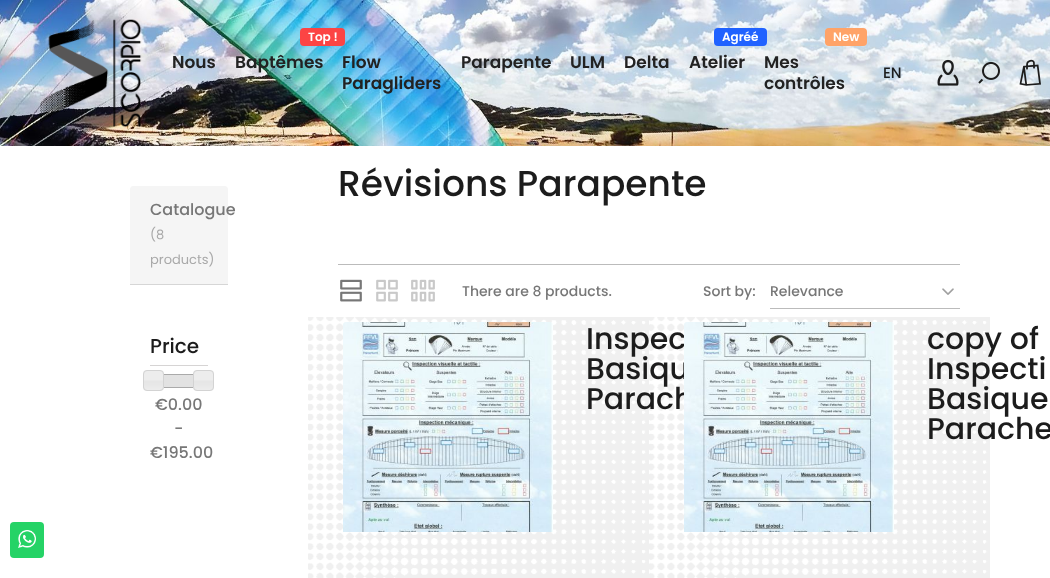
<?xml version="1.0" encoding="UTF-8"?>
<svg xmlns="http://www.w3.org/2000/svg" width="1050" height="578">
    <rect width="100%" height="100%" fill="#FFFFFF"/>
    <image x="0" y="0" width="1050" height="146" href="img_05.png"/>
    <image x="40" y="19" width="102" height="109" href="img_01.png"/>
    <text x="172" y="68" font-family="Poppins" font-size="17" font-weight="600" fill="#222222">Nous</text>
    <rect x="300" y="28" width="45" height="18" rx="4" fill="#FC4444"/>
    <text x="308" y="41" font-family="Poppins" font-size="12" font-weight="600" fill="#FFFFFF">Top !</text>
    <text x="235" y="68" font-family="Poppins" font-size="17" font-weight="600" fill="#222222">Baptêmes</text>
    <text font-family="Poppins" font-size="17" font-weight="600" fill="#222222">
        <tspan x="342" y="68">Flow</tspan>
        <tspan x="342" y="89">Paragliders</tspan>
    </text>
    <text x="461" y="68" font-family="Poppins" font-size="17" font-weight="600" fill="#222222">Parapente</text>
    <text x="570" y="68" font-family="Poppins" font-size="17" font-weight="600" fill="#222222">ULM</text>
    <text x="624" y="68" font-family="Poppins" font-size="17" font-weight="600" fill="#222222">Delta</text>
    <rect x="714" y="28" width="53" height="18" rx="4" fill="#2062FF"/>
    <text x="722" y="41" font-family="Poppins" font-size="12" font-weight="600" fill="#FFFFFF">Agréé</text>
    <text x="689" y="68" font-family="Poppins" font-size="17" font-weight="600" fill="#222222">Atelier</text>
    <rect x="825" y="28" width="42" height="18" rx="4" fill="#FFA368"/>
    <text x="833" y="41" font-family="Poppins" font-size="12" font-weight="600" fill="#FFFFFF">New</text>
    <text font-family="Poppins" font-size="17" font-weight="600" fill="#222222">
        <tspan x="764" y="68">Mes</tspan>
        <tspan x="764" y="89">contrôles</tspan>
    </text>
    <text x="883" y="78" font-family="Poppins" font-size="15" font-weight="500" fill="#1C1C1C">EN</text>
    <image x="937" y="59" width="22" height="27" href="img_02.png"/>
    <image x="978" y="62" width="22" height="22" href="img_03.png"/>
    <image x="1019" y="59" width="22" height="27" href="img_04.png"/>
    <path d="M 133 186 H 225 C 226.5 186 228 187.5 228 189 V 285 H 130 V 189 C 130 187.5 131.5 186 133 186 Z" fill="#F5F5F5"/>
    <rect x="130" y="284" width="98" height="1" fill="#D6D6D6"/>
    <text x="150" y="215" font-family="Poppins" font-size="16" font-weight="500" fill="#777777">Catalogue</text>
    <text font-family="Poppins" font-size="13" fill="#A9A9A9">
        <tspan x="150" y="239">(8</tspan>
        <tspan x="150" y="264">products)</tspan>
    </text>
    <rect x="150" y="365" width="58" height="1" fill="#D6D4D4"/>
    <text x="150" y="353" font-family="Poppins" font-size="20" font-weight="500" fill="#1C1C1C">Price</text>
    <rect x="153.5" y="374.5" width="51" height="13" fill="none" stroke="#AAAAAA"/>
    <image x="143" y="370" width="21" height="21" href="img_06.png"/>
    <rect x="143.5" y="370.5" width="20" height="20" rx="3.5" fill="none" stroke="#D3D3D3"/>
    <rect x="164" y="375" width="29" height="12" fill="#E2E2E2"/>
    <image x="193" y="370" width="21" height="21" href="img_06.png"/>
    <rect x="193.5" y="370.5" width="20" height="20" rx="3.5" fill="none" stroke="#D3D3D3"/>
    <text x="155" y="410" font-family="Poppins" font-size="16" font-weight="500" fill="#777777">€0.00</text>
    <text x="174" y="434" font-family="Poppins" font-size="16" font-weight="500" fill="#777777">-</text>
    <text x="150" y="458" font-family="Poppins" font-size="16" font-weight="500" fill="#777777">€195.00</text>
    <text x="338" y="196" font-family="Poppins" font-size="36" font-weight="500" fill="#1C1C1C">Révisions Parapente</text>
    <rect x="338" y="264" width="622" height="1" fill="#BBBBBB"/>
    <image x="340" y="279" width="22" height="23" href="img_07.png"/>
    <image x="376" y="279" width="22" height="23" href="img_08.png"/>
    <image x="411" y="279" width="24" height="23" href="img_09.png"/>
    <text x="462" y="296" font-family="Poppins" font-size="14" font-weight="500" fill="#777777">There are 8 products.</text>
    <text x="703" y="296" font-family="Poppins" font-size="14" font-weight="500" fill="#777777">Sort by:</text>
    <text x="770" y="296" font-family="Poppins" font-size="14" font-weight="500" fill="#777777">Relevance</text>
    <image x="942" y="288" width="12" height="7" href="img_10.png"/>
    <rect x="770" y="308" width="190" height="1" fill="#BBBBBB"/>
    <image x="308" y="317" width="341" height="261" href="img_11.png"/>
    <image x="343" y="322" width="210" height="210" href="img_12.png"/>
    <image x="649" y="317" width="341" height="261" href="img_11.png"/>
    <text font-family="Poppins" font-size="30" font-weight="500" fill="#1C1C1C">
        <tspan x="586" y="349">Inspec</tspan>
        <tspan x="586" y="379">Basiqu</tspan>
        <tspan x="586" y="409">Parach</tspan>
    </text>
    <image x="684" y="322" width="210" height="210" href="img_13.png"/>
    <text font-family="Poppins" font-size="30" font-weight="500" fill="#1C1C1C">
        <tspan x="927" y="349">copy of</tspan>
        <tspan x="927" y="379">Inspecti</tspan>
        <tspan x="927" y="409">Basique</tspan>
        <tspan x="927" y="439">Parache</tspan>
    </text>
    <rect x="10" y="522" width="34" height="36" rx="4" fill="#25D366"/>
    <image x="18" y="530" width="18" height="18" href="img_14.png"/>
</svg>
